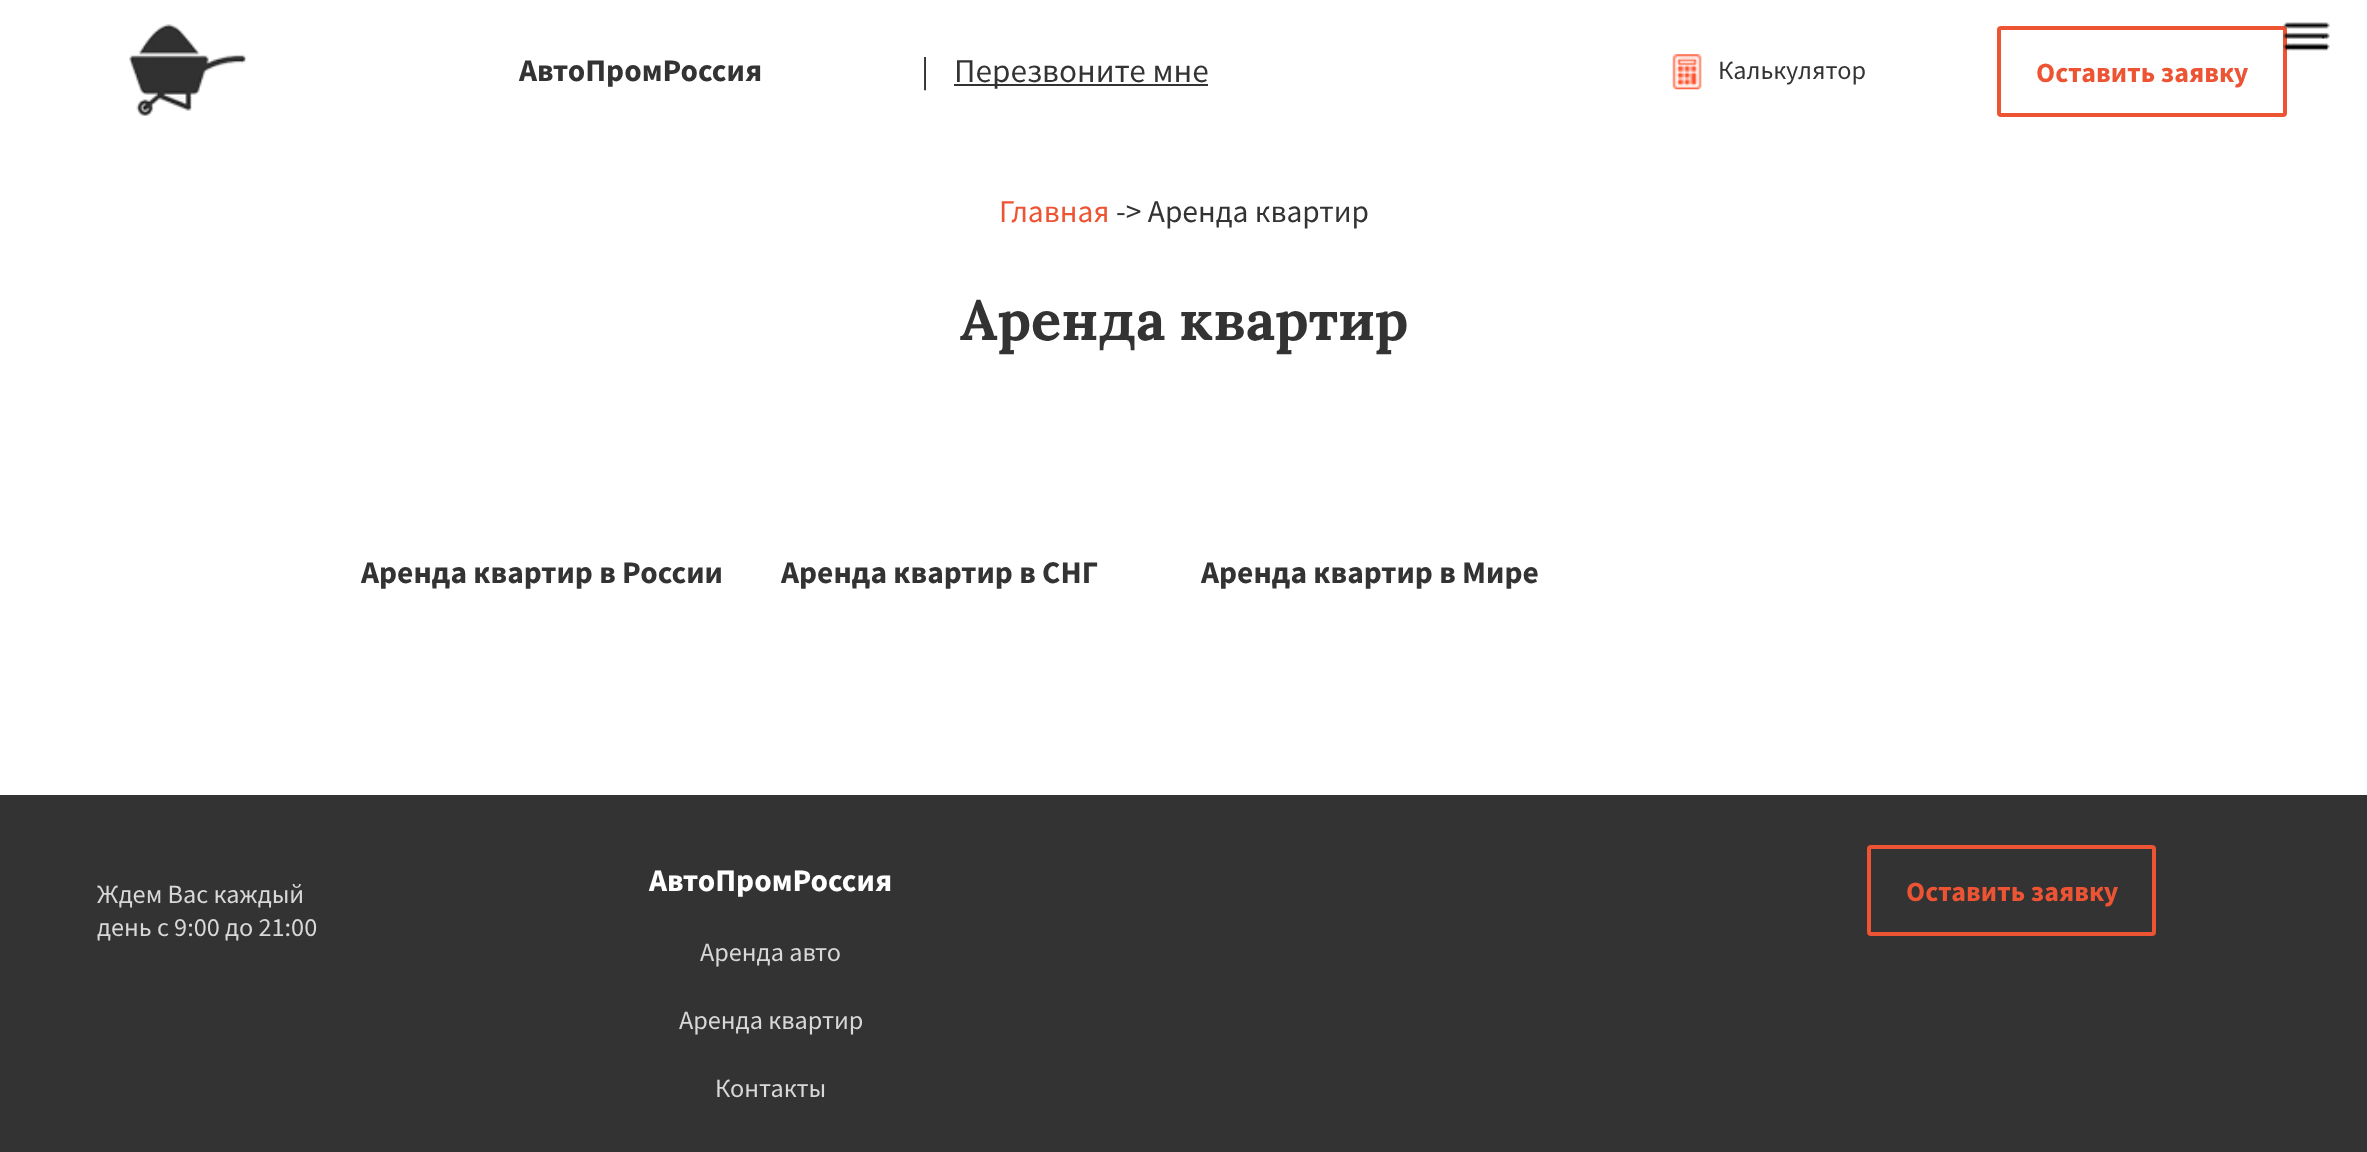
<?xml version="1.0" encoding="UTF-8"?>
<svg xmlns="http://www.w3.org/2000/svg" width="2367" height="1152">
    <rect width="100%" height="100%" fill="#FFFFFF"/>
    <rect x="1999" y="28" width="286" height="87" rx="2" fill="none" stroke="#ED5434" stroke-width="4"/>
    <image x="2283" y="22" width="47" height="29" href="img_01.png"/>
    <image x="129" y="24" width="117" height="92" href="img_02.png"/>
    <text x="519" y="81" font-family="Source Sans Pro" font-size="31.5" font-weight="700" fill="#333333">АвтоПромРоссия</text>
    <text x="921" y="82" font-family="Source Sans Pro" font-size="33.25" fill="#333333">|</text>
    <rect x="954" y="84" width="254" height="2" fill="#333333"/>
    <text x="954" y="82" font-family="Source Sans Pro" font-size="33.25" fill="#333333">Перезвоните мне</text>
    <image x="1672" y="54" width="30" height="36" href="img_03.png"/>
    <text x="1718" y="79" font-family="Source Sans Pro" font-size="26.25" fill="#333333">Калькулятор</text>
    <text x="2036" y="82" font-family="Source Sans Pro" font-size="28" font-weight="700" fill="#ED5434">Оставить заявку</text>
    <text x="999" y="222" font-family="Source Sans Pro" font-size="31.5" fill="#ED5434">Главная</text>
    <text x="1116" y="222" font-family="Source Sans Pro" font-size="31.5" fill="#333333">-&gt; Аренда квартир</text>
    <text x="960" y="340" font-family="Lora" font-size="56" font-weight="700" fill="#333333">Аренда квартир</text>
    <text x="361" y="583" font-family="Source Sans Pro" font-size="31.5" font-weight="700" fill="#333333">Аренда квартир в России</text>
    <text x="781" y="583" font-family="Source Sans Pro" font-size="31.5" font-weight="700" fill="#333333">Аренда квартир в СНГ</text>
    <text x="1201" y="583" font-family="Source Sans Pro" font-size="31.5" font-weight="700" fill="#333333">Аренда квартир в Мире</text>
    <rect x="0" y="795" width="2367" height="357" fill="#333333"/>
    <text font-family="Source Sans Pro" font-size="26.25" fill="#D8D8D8">
        <tspan x="97" y="903">Ждем Вас каждый</tspan>
        <tspan x="97" y="936">день с 9:00 до 21:00</tspan>
    </text>
    <text x="649" y="891" font-family="Source Sans Pro" font-size="31.5" font-weight="700" fill="#FFFFFF">АвтоПромРоссия</text>
    <text x="700" y="961" font-family="Source Sans Pro" font-size="26.25" fill="#D8D8D8">Аренда авто</text>
    <text x="679" y="1029" font-family="Source Sans Pro" font-size="26.25" fill="#D8D8D8">Аренда квартир</text>
    <text x="715" y="1097" font-family="Source Sans Pro" font-size="26.25" fill="#D8D8D8">Контакты</text>
    <rect x="1869" y="847" width="285" height="87" rx="2" fill="none" stroke="#ED5434" stroke-width="4"/>
    <text x="1906" y="901" font-family="Source Sans Pro" font-size="28" font-weight="700" fill="#ED5434">Оставить заявку</text>
</svg>
